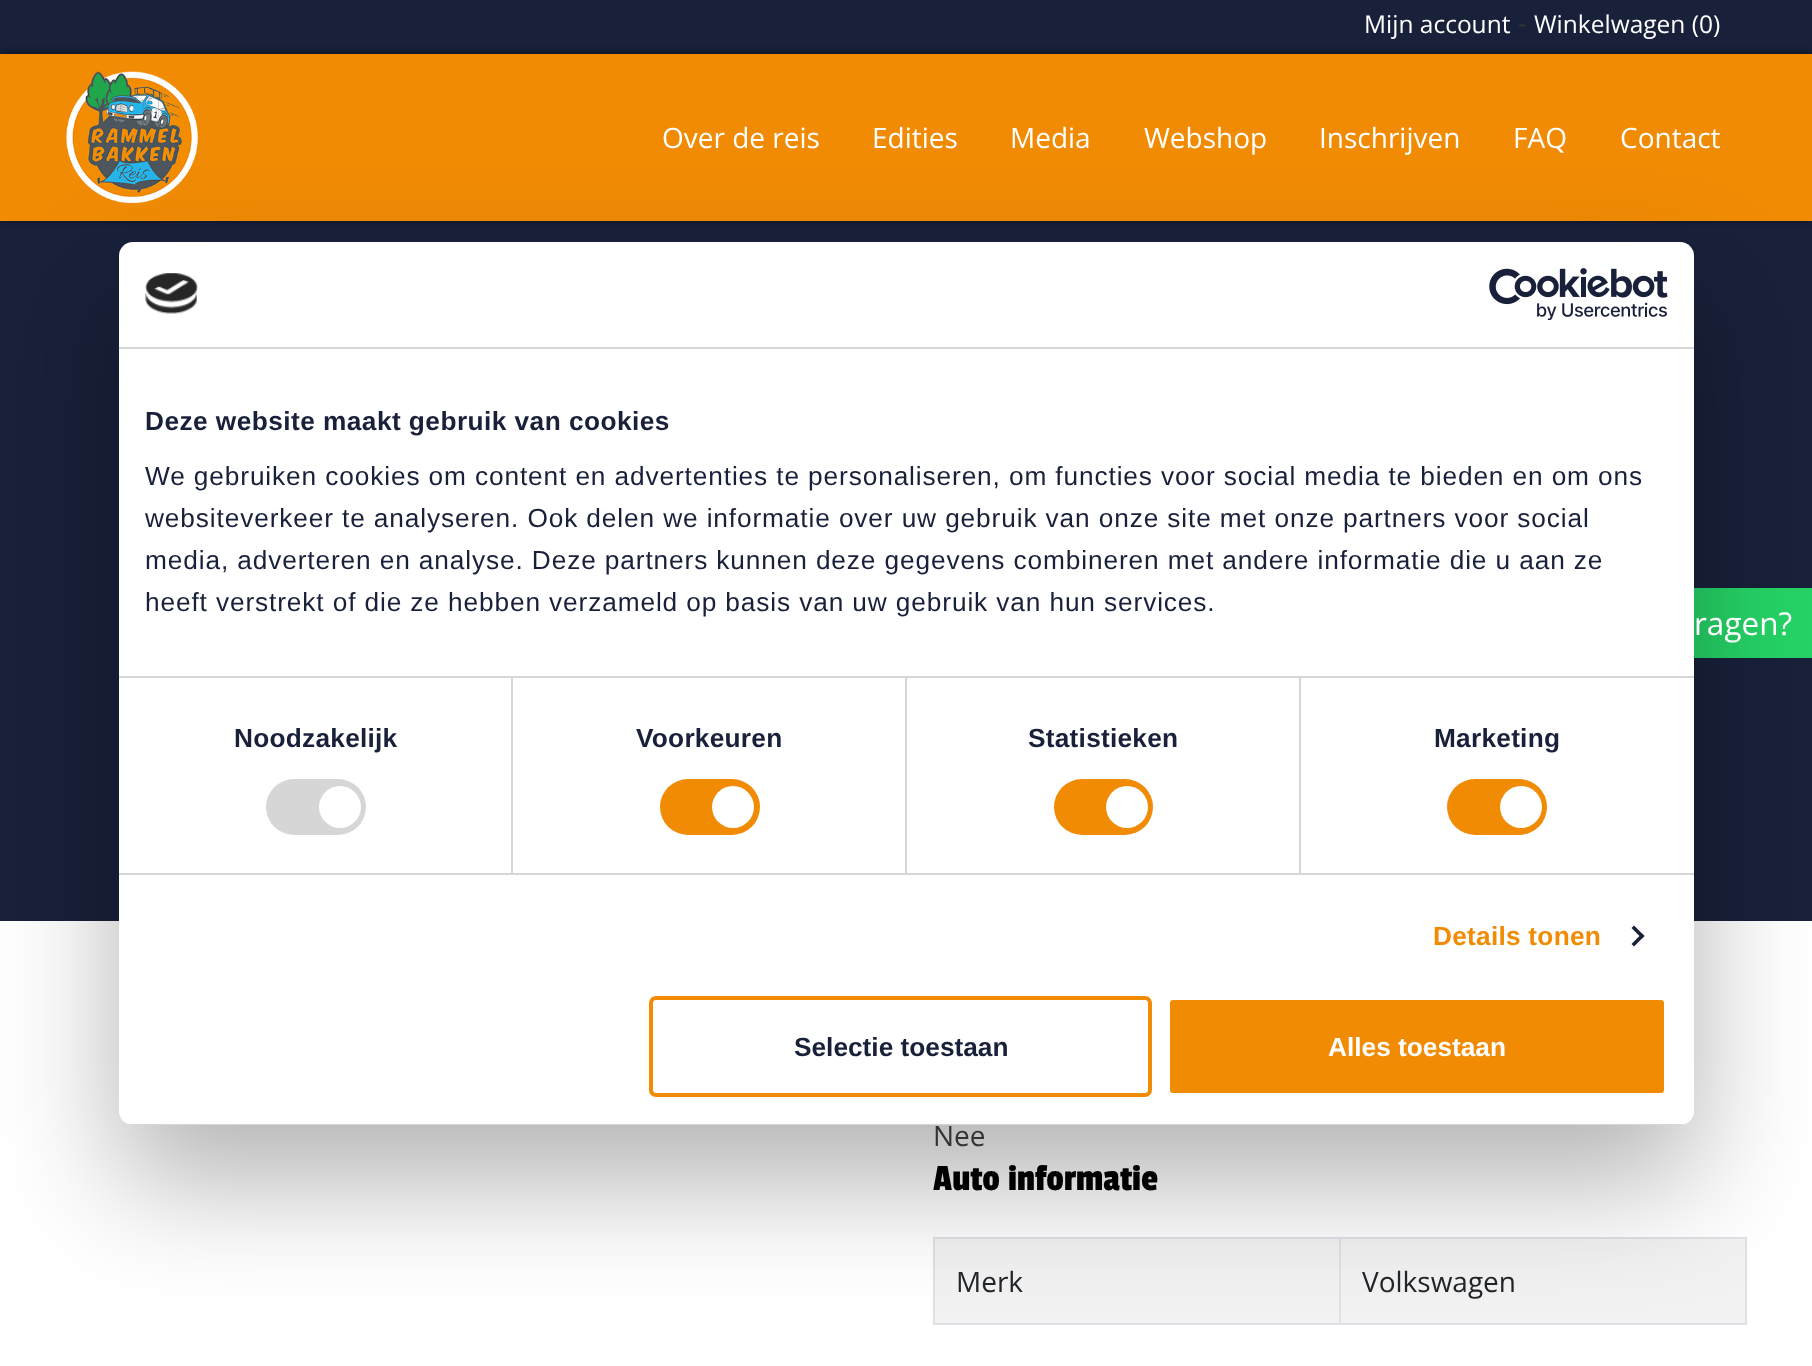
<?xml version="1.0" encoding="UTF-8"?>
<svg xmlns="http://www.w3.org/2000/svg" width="1812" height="1366">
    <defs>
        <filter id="blur1" x="-50%" y="-200%" width="200%" height="500%"><feGaussianBlur stdDeviation="4.5"/></filter>
        <filter id="blur2" x="-50%" y="-200%" width="200%" height="500%"><feGaussianBlur stdDeviation="59.5"/></filter>
        <clipPath id="clip1"><rect x="119" y="242" width="1575" height="883" rx="14"/></clipPath>
    </defs>
    <rect width="100%" height="100%" fill="#18203A"/>
    <text x="1364" y="33" font-family="Open Sans" font-size="24.5" fill="#FFFFFF">Mijn account</text>
    <text x="1518" y="33" font-family="Open Sans" font-size="28" fill="#333333">-</text>
    <text x="1534" y="33" font-family="Open Sans" font-size="24.5" fill="#FFFFFF">Winkelwagen (0)</text>
    <rect x="0" y="54" width="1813" height="167" fill="#000000" fill-opacity="0.5" filter="url(#blur1)"/>
    <rect x="0" y="54" width="1812" height="167" fill="#F18B04"/>
    <image x="66" y="71" width="132" height="132" href="img_01.png"/>
    <text x="662" y="148" font-family="Open Sans" font-size="28" fill="#FFFFFF">Over de reis</text>
    <text x="872" y="148" font-family="Open Sans" font-size="28" fill="#FFFFFF">Edities</text>
    <text x="1010" y="148" font-family="Open Sans" font-size="28" fill="#FFFFFF">Media</text>
    <text x="1144" y="148" font-family="Open Sans" font-size="28" fill="#FFFFFF">Webshop</text>
    <text x="1319" y="148" font-family="Open Sans" font-size="28" fill="#FFFFFF">Inschrijven</text>
    <text x="1513" y="148" font-family="Open Sans" font-size="28" fill="#FFFFFF">FAQ</text>
    <text x="1620" y="148" font-family="Open Sans" font-size="28" fill="#FFFFFF">Contact</text>
    <rect x="1694" y="588" width="118" height="70" fill="#25D366"/>
    <rect x="0" y="921" width="1812" height="445" fill="#FFFFFF"/>
    <rect x="933" y="1237" width="814" height="2" fill="#DEE2E6"/>
    <rect x="1745" y="1237" width="2" height="88" fill="#DEE2E6"/>
    <rect x="933" y="1323" width="814" height="2" fill="#DEE2E6"/>
    <rect x="933" y="1237" width="2" height="88" fill="#DEE2E6"/>
    <rect x="935" y="1239" width="810" height="84" fill="#F2F2F2"/>
    <rect x="1339" y="1237" width="2" height="88" fill="#DEE2E6"/>
    <rect x="119" y="298" width="1575" height="883" rx="14" fill="#000000" fill-opacity="0.3" filter="url(#blur2)"/>
    <rect x="119" y="242" width="1575" height="883" rx="14" fill="#FFFFFF"/>
    <rect x="119" y="347" width="1575" height="2" fill="#D6D6D6"/>
    <image x="145" y="273" width="53" height="41" href="img_02.png"/>
    <image x="1489" y="268" width="179" height="52" href="img_03.png"/>
    <rect x="511" y="677" width="2" height="196" fill="#D6D6D6"/>
    <rect x="905" y="677" width="2" height="196" fill="#D6D6D6"/>
    <rect x="1299" y="677" width="2" height="196" fill="#D6D6D6"/>
    <rect x="119" y="676" width="1575" height="2" fill="#D6D6D6"/>
    <text x="145" y="430" font-family="Liberation Sans" font-size="26.25" font-weight="700" letter-spacing="0.45" fill="#18203A">Deze website maakt gebruik van cookies</text>
    <text font-family="Liberation Sans" font-size="26.25" letter-spacing="0.88" fill="#18203A">
        <tspan x="145" y="485">We gebruiken cookies om content en advertenties te personaliseren, om functies voor social media te bieden en om ons</tspan>
        <tspan x="145" y="527">websiteverkeer te analyseren. Ook delen we informatie over uw gebruik van onze site met onze partners voor social</tspan>
        <tspan x="145" y="569">media, adverteren en analyse. Deze partners kunnen deze gegevens combineren met andere informatie die u aan ze</tspan>
        <tspan x="145" y="611">heeft verstrekt of die ze hebben verzameld op basis van uw gebruik van hun services.</tspan>
    </text>
    <rect x="119" y="873" width="1575" height="2" fill="#D6D6D6"/>
    <text x="234" y="747" font-family="Liberation Sans" font-size="26.25" font-weight="700" letter-spacing="0.25" fill="#18203A">Noodzakelijk</text>
    <rect x="266" y="779" width="100" height="56" rx="28" fill="#D6D6D6"/>
    <circle cx="340" cy="807" r="21" fill="#FFFFFF"/>
    <text x="636" y="747" font-family="Liberation Sans" font-size="26.25" font-weight="700" letter-spacing="0.25" fill="#18203A">Voorkeuren</text>
    <rect x="660" y="779" width="100" height="56" rx="28" fill="#F18B04"/>
    <circle cx="733" cy="807" r="21" fill="#FFFFFF"/>
    <text x="1028" y="747" font-family="Liberation Sans" font-size="26.25" font-weight="700" letter-spacing="0.25" fill="#18203A">Statistieken</text>
    <rect x="1054" y="779" width="99" height="56" rx="28" fill="#F18B04"/>
    <circle cx="1127" cy="807" r="21" fill="#FFFFFF"/>
    <text x="1434" y="747" font-family="Liberation Sans" font-size="26.25" font-weight="700" letter-spacing="0.25" fill="#18203A">Marketing</text>
    <rect x="1447" y="779" width="100" height="56" rx="28" fill="#F18B04"/>
    <circle cx="1521" cy="807" r="21" fill="#FFFFFF"/>
    <text x="1433" y="945" font-family="Liberation Sans" font-size="26.25" font-weight="700" letter-spacing="0.25" fill="#F18B04">Details tonen</text>
    <path d="M 1634 925.5 L 1644.5 936 L 1642 938.5 L 1631.5 928 Z" fill="#18203A"/>
    <path d="M 1642 933.5 L 1644.5 936 L 1634 946.5 L 1631.5 944 Z" fill="#18203A"/>
    <g clip-path="url(#clip1)">
        <rect x="128" y="1124" width="1557" height="1" fill="#D6D6D6"/>
    </g>
    <rect x="651" y="998" width="499" height="97" rx="5" fill="none" stroke="#F18B04" stroke-width="4"/>
    <text x="794" y="1056" font-family="Liberation Sans" font-size="26.25" font-weight="700" fill="#18203A">Selectie toestaan</text>
    <rect x="1168" y="998" width="498" height="97" rx="5" fill="#F18B04" stroke="#FFFFFF" stroke-width="4"/>
    <text x="1328" y="1056" font-family="Liberation Sans" font-size="26.25" font-weight="700" fill="#FFFFFF">Alles toestaan</text>
    <text x="1694" y="635" font-family="Open Sans" font-size="31.5" fill="#FFFFFF">ragen?</text>
    <text x="933" y="1146" font-family="Open Sans" font-size="28" fill="#333333">Nee</text>
    <text x="933" y="1190" font-family="Passion One" font-size="38.5" fill="#000000">Auto informatie</text>
    <text x="956" y="1292" font-family="Open Sans" font-size="28" fill="#212529">Merk</text>
    <text x="1362" y="1292" font-family="Open Sans" font-size="28" fill="#212529">Volkswagen</text>
</svg>
